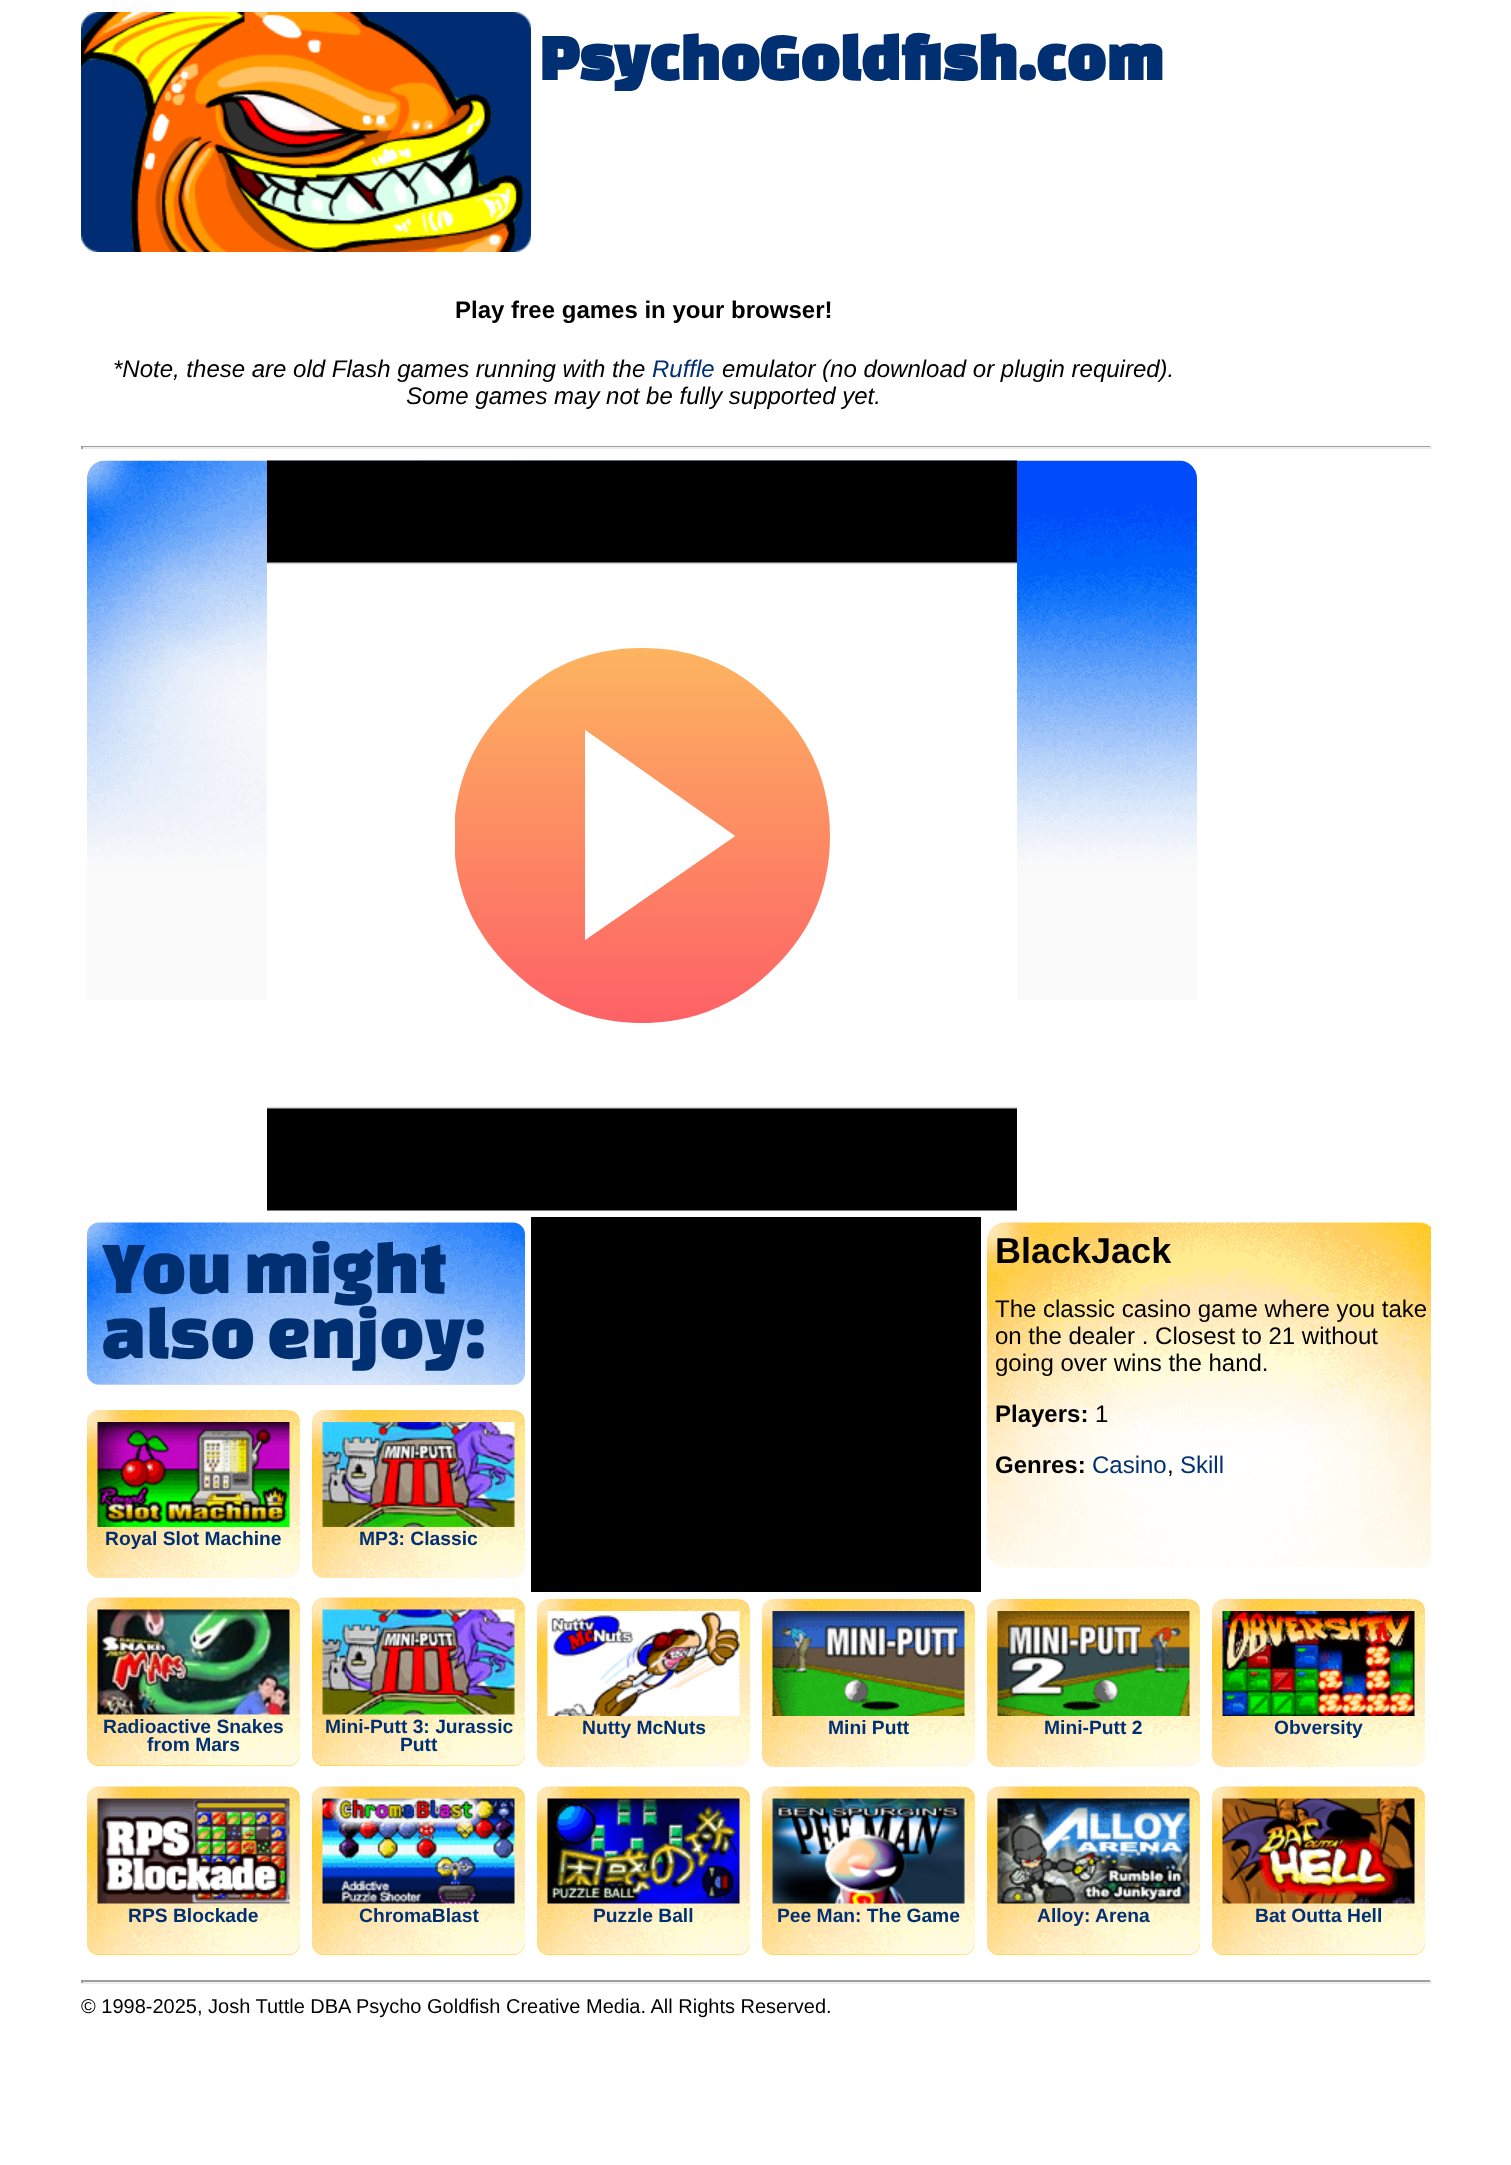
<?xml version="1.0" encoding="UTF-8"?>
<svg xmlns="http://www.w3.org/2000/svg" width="1511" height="2165">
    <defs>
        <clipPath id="clip1"><rect x="455" y="648" width="375" height="375"/></clipPath>
        <linearGradient id="g1" gradientUnits="userSpaceOnUse" x1="642" y1="648" x2="642" y2="1023"><stop offset="0" stop-color="#FDB460"/><stop offset="1" stop-color="#FD6166"/></linearGradient>
    </defs>
    <rect width="100%" height="100%" fill="#FFFFFF"/>
    <image x="81" y="12" width="450" height="240" href="img_01.png"/>
    <text x="539" y="80" font-family="Changa One" font-size="67.25" font-weight="700" fill="#003072">PsychoGoldfish.com</text>
    <text x="455" y="318" font-family="Liberation Sans" font-size="24" font-weight="700" fill="#000000">Play free games in your browser!</text>
    <text x="113" y="377" font-family="Liberation Sans" font-size="24" font-style="italic" fill="#000000">*Note, these are old Flash games running with the</text>
    <text x="652" y="377" font-family="Liberation Sans" font-size="24" font-style="italic" fill="#003072">Ruffle</text>
    <text x="722" y="377" font-family="Liberation Sans" font-size="24" font-style="italic" fill="#000000">emulator (no download or plugin required).</text>
    <text x="406" y="404" font-family="Liberation Sans" font-size="24" font-style="italic" fill="#000000">Some games may not be fully supported yet.</text>
    <rect x="81" y="446" width="1350" height="1" fill="#9F9F9F"/>
    <rect x="1430" y="446" width="2" height="3" fill="#EEEEEE"/>
    <rect x="81" y="447" width="1350" height="2" fill="#EEEEEE"/>
    <rect x="81" y="446" width="2" height="3" fill="#9F9F9F"/>
    <image x="87" y="460" width="1110" height="540" href="img_02.png"/>
    <image x="267" y="460" width="750" height="751" href="img_03.png"/>
    <g clip-path="url(#clip1)">
        <path d="M 830 836 C 830 784 811 740 774 704 C 738 666 694 648 642 648 C 590 648 546 666 510 704 C 473 740 454 784 454 836 C 454 888 473 932 510 968 C 546 1004 590 1023 642 1023 C 694 1023 738 1004 774 968 C 811 932 830 888 830 836 M 585 940 V 730 L 735 836 Z" fill="url(#g1)"/>
    </g>
    <path d="M 585 730 V 940 L 735 836 Z" fill="#FFFFFF"/>
    <rect x="87" y="1223" width="438" height="162" rx="12" fill="#DDDDFF"/>
    <image x="87" y="1222" width="439" height="163" href="img_04.png"/>
    <text font-family="Changa One" font-size="77" fill="#003072">
        <tspan x="102" y="1293">You might</tspan>
        <tspan x="102" y="1358">also enjoy:</tspan>
    </text>
    <rect x="531" y="1217" width="450" height="375" fill="#000000"/>
    <image x="987" y="1222" width="444" height="346" href="img_05.png"/>
    <text x="995" y="1263" font-family="Liberation Sans" font-size="36" font-weight="700" fill="#000000">BlackJack</text>
    <text font-family="Liberation Sans" font-size="24" fill="#000000">
        <tspan x="995" y="1317">The classic casino game where you take</tspan>
        <tspan x="995" y="1344">on the dealer . Closest to 21 without</tspan>
        <tspan x="995" y="1371">going over wins the hand.</tspan>
    </text>
    <text x="995" y="1422" font-family="Liberation Sans" font-size="24" font-weight="700" fill="#000000">Players:</text>
    <text x="1095" y="1422" font-family="Liberation Sans" font-size="24" fill="#000000">1</text>
    <text x="995" y="1473" font-family="Liberation Sans" font-size="24" font-weight="700" fill="#000000">Genres:</text>
    <text x="1092" y="1473" font-family="Liberation Sans" font-size="24" fill="#003072">Casino</text>
    <text x="1167" y="1473" font-family="Liberation Sans" font-size="24" fill="#000000">,</text>
    <text x="1180" y="1473" font-family="Liberation Sans" font-size="24" fill="#003072">Skill</text>
    <image x="87" y="1410" width="213" height="168" href="img_06.png"/>
    <image x="97" y="1422" width="193" height="105" href="img_07.png"/>
    <text x="105" y="1545" font-family="Liberation Sans" font-size="19.25" font-weight="700" fill="#003072">Royal Slot Machine</text>
    <image x="312" y="1410" width="213" height="168" href="img_08.png"/>
    <image x="322" y="1422" width="193" height="105" href="img_09.png"/>
    <text x="359" y="1545" font-family="Liberation Sans" font-size="19.25" font-weight="700" fill="#003072">MP3: Classic</text>
    <rect x="87" y="1598" width="213" height="168" rx="12" fill="#FFCC00"/>
    <image x="87" y="1597" width="213" height="169" href="img_10.png"/>
    <image x="97" y="1609" width="193" height="106" href="img_11.png"/>
    <text x="103" y="1733" font-family="Liberation Sans" font-size="19.25" font-weight="700" fill="#003072">Radioactive Snakes</text>
    <text x="147" y="1751" font-family="Liberation Sans" font-size="19.25" font-weight="700" fill="#003072">from Mars</text>
    <rect x="312" y="1598" width="213" height="168" rx="12" fill="#FFCC00"/>
    <image x="312" y="1597" width="213" height="169" href="img_12.png"/>
    <image x="322" y="1609" width="193" height="106" href="img_13.png"/>
    <text x="325" y="1733" font-family="Liberation Sans" font-size="19.25" font-weight="700" fill="#003072">Mini-Putt 3: Jurassic</text>
    <text x="400" y="1751" font-family="Liberation Sans" font-size="19.25" font-weight="700" fill="#003072">Putt</text>
    <image x="537" y="1599" width="213" height="168" href="img_14.png"/>
    <image x="547" y="1611" width="193" height="105" href="img_15.png"/>
    <text x="582" y="1734" font-family="Liberation Sans" font-size="19.25" font-weight="700" fill="#003072">Nutty McNuts</text>
    <image x="762" y="1599" width="213" height="168" href="img_16.png"/>
    <image x="772" y="1611" width="193" height="105" href="img_17.png"/>
    <text x="828" y="1734" font-family="Liberation Sans" font-size="19.25" font-weight="700" fill="#003072">Mini Putt</text>
    <image x="987" y="1599" width="213" height="168" href="img_06.png"/>
    <image x="997" y="1611" width="193" height="105" href="img_18.png"/>
    <text x="1044" y="1734" font-family="Liberation Sans" font-size="19.25" font-weight="700" fill="#003072">Mini-Putt 2</text>
    <image x="1212" y="1599" width="213" height="168" href="img_19.png"/>
    <image x="1222" y="1611" width="193" height="105" href="img_20.png"/>
    <text x="1274" y="1734" font-family="Liberation Sans" font-size="19.25" font-weight="700" fill="#003072">Obversity</text>
    <rect x="87" y="1787" width="213" height="168" rx="12" fill="#FFCC00"/>
    <image x="87" y="1786" width="213" height="169" href="img_10.png"/>
    <image x="97" y="1798" width="193" height="106" href="img_21.png"/>
    <text x="128" y="1922" font-family="Liberation Sans" font-size="19.25" font-weight="700" fill="#003072">RPS Blockade</text>
    <rect x="312" y="1787" width="213" height="168" rx="12" fill="#FFCC00"/>
    <image x="312" y="1786" width="213" height="169" href="img_12.png"/>
    <image x="322" y="1798" width="193" height="106" href="img_22.png"/>
    <text x="359" y="1922" font-family="Liberation Sans" font-size="19.25" font-weight="700" fill="#003072">ChromaBlast</text>
    <rect x="537" y="1787" width="213" height="168" rx="12" fill="#FFCC00"/>
    <image x="537" y="1786" width="213" height="169" href="img_23.png"/>
    <image x="547" y="1798" width="193" height="106" href="img_24.png"/>
    <text x="593" y="1922" font-family="Liberation Sans" font-size="19.25" font-weight="700" fill="#003072">Puzzle Ball</text>
    <rect x="762" y="1787" width="213" height="168" rx="12" fill="#FFCC00"/>
    <image x="762" y="1786" width="213" height="169" href="img_25.png"/>
    <image x="772" y="1798" width="193" height="106" href="img_26.png"/>
    <text x="777" y="1922" font-family="Liberation Sans" font-size="19.25" font-weight="700" fill="#003072">Pee Man: The Game</text>
    <rect x="987" y="1787" width="213" height="168" rx="12" fill="#FFCC00"/>
    <image x="987" y="1786" width="213" height="169" href="img_10.png"/>
    <image x="997" y="1798" width="193" height="106" href="img_27.png"/>
    <text x="1037" y="1922" font-family="Liberation Sans" font-size="19.25" font-weight="700" fill="#003072">Alloy: Arena</text>
    <rect x="1212" y="1787" width="213" height="168" rx="12" fill="#FFCC00"/>
    <image x="1212" y="1786" width="213" height="169" href="img_28.png"/>
    <image x="1222" y="1798" width="193" height="106" href="img_29.png"/>
    <text x="1255" y="1922" font-family="Liberation Sans" font-size="19.25" font-weight="700" fill="#003072">Bat Outta Hell</text>
    <rect x="81" y="1980" width="1350" height="2" fill="#9F9F9F"/>
    <rect x="1430" y="1980" width="2" height="3" fill="#EEEEEE"/>
    <rect x="81" y="1982" width="1350" height="2" fill="#EEEEEE"/>
    <rect x="81" y="1980" width="2" height="3" fill="#9F9F9F"/>
    <text x="81" y="2013" font-family="Liberation Sans" font-size="20" fill="#000000">© 1998-2025, Josh Tuttle DBA Psycho Goldfish Creative Media. All Rights Reserved.</text>
</svg>
